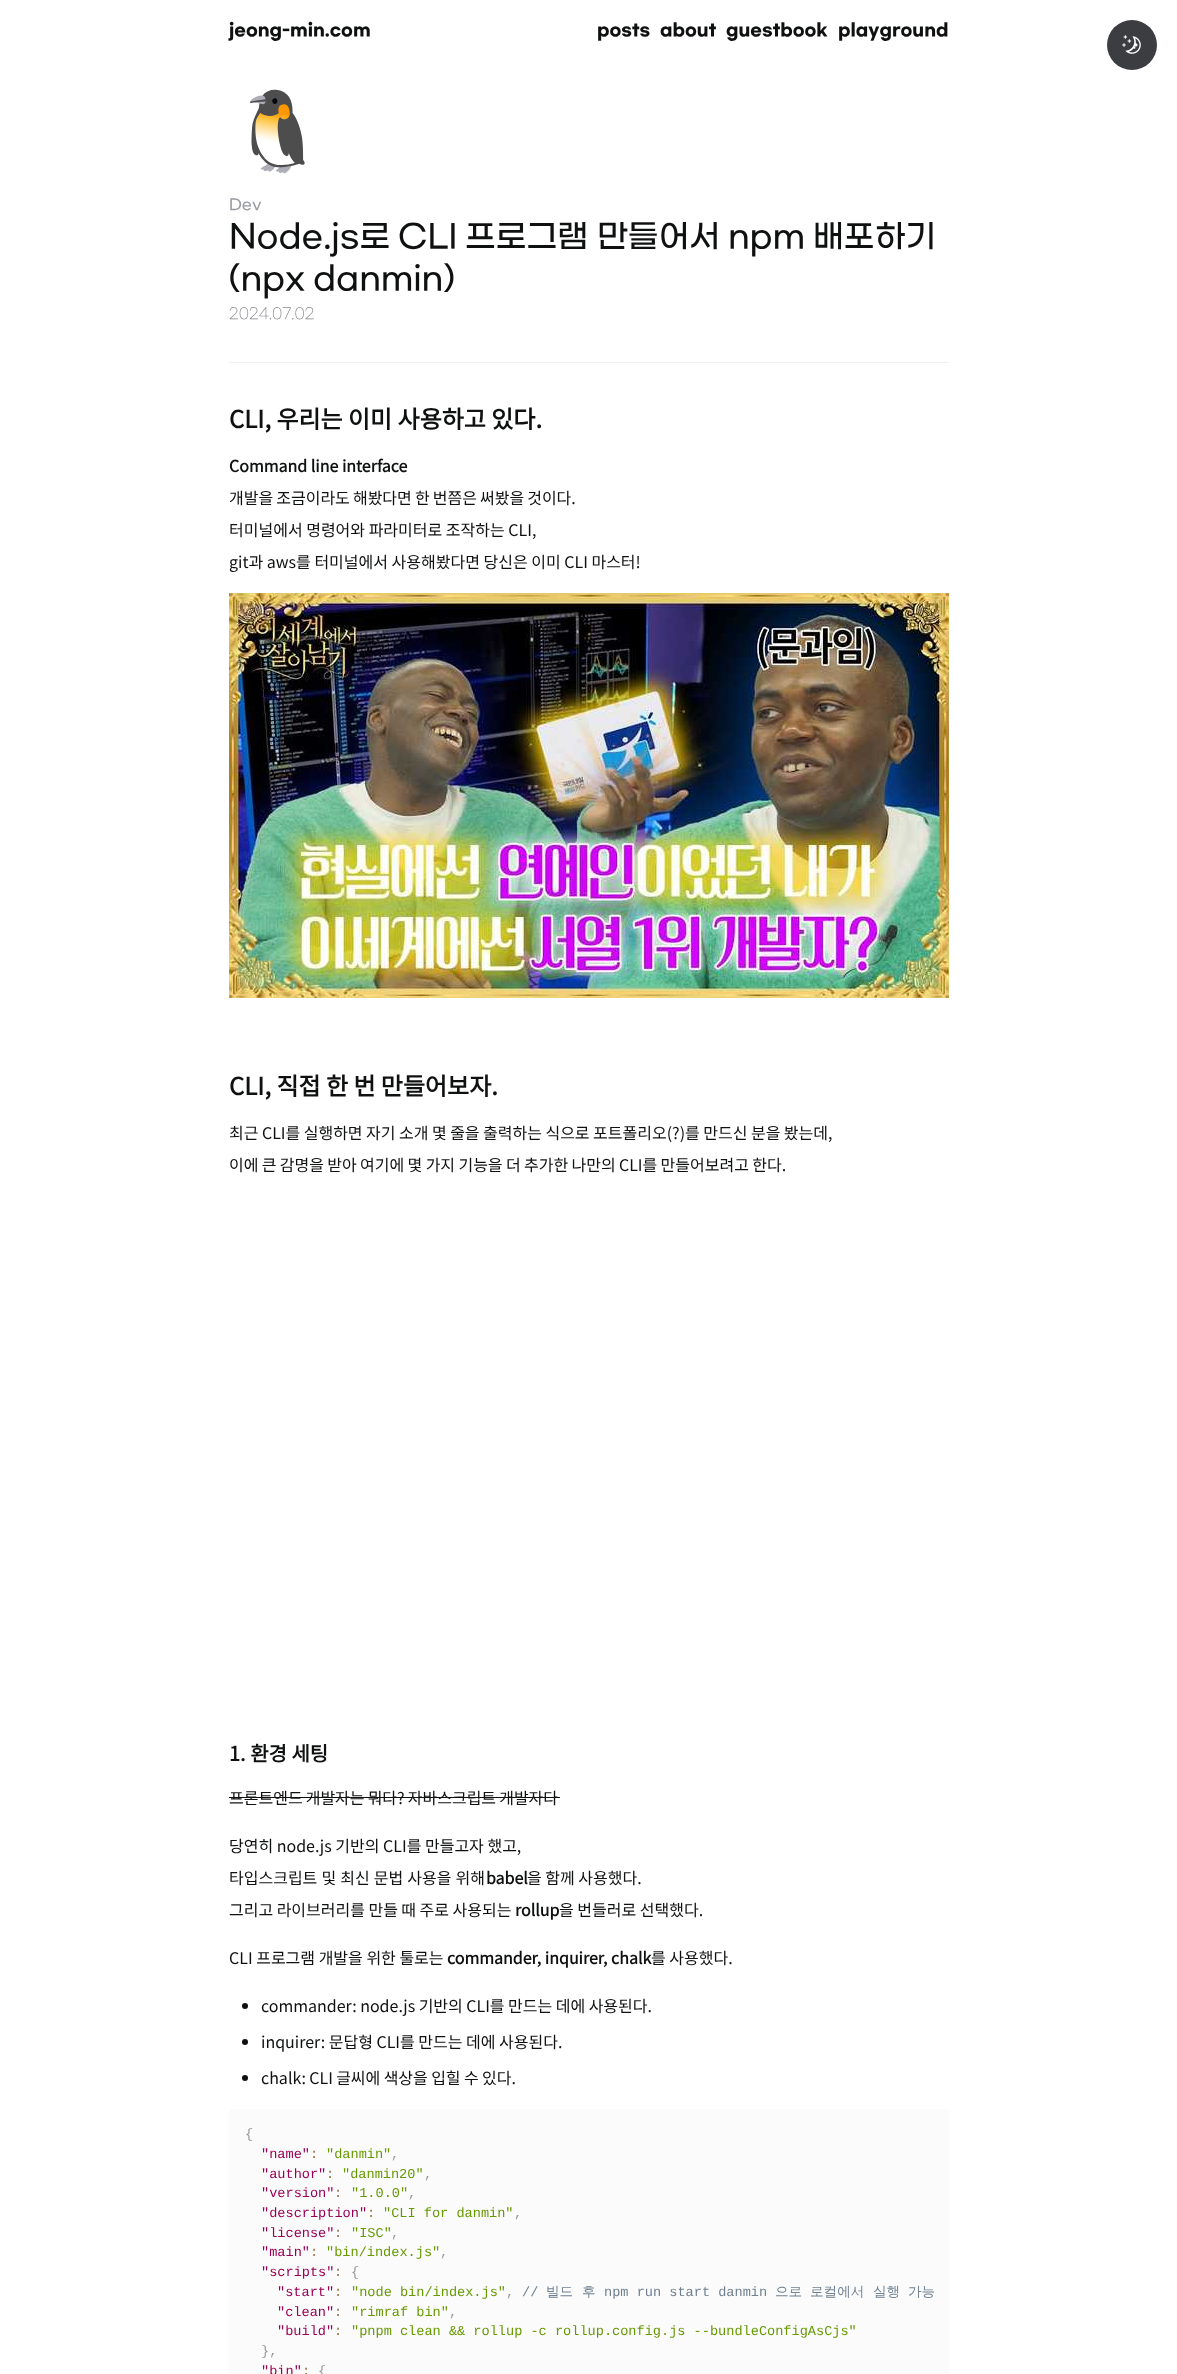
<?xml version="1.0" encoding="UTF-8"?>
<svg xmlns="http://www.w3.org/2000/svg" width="1177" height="2374">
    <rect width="100%" height="100%" fill="#FFFFFF"/>
    <text x="229" y="35" font-family="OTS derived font" font-size="17" font-weight="700" fill="#0F1010">jeong-min.com</text>
    <text x="597" y="35" font-family="OTS derived font" font-size="17" font-weight="700" fill="#0F1010">posts</text>
    <text x="660" y="35" font-family="OTS derived font" font-size="17" font-weight="700" fill="#0F1010">about</text>
    <text x="726" y="35" font-family="OTS derived font" font-size="17" font-weight="700" fill="#0F1010">guestbook</text>
    <text x="838" y="35" font-family="OTS derived font" font-size="17" font-weight="700" fill="#0F1010">playground</text>
    <rect x="229" y="362" width="720" height="1" fill="#EEEFF1"/>
    <text x="229" y="158" font-family="Noto Color Emoji" font-size="78" fill="#0F1010">🐧</text>
    <text x="229" y="209" font-family="OTS derived font" font-size="15" font-weight="500" fill="#989BA0">Dev</text>
    <text x="229" y="246" font-family="OTS derived font" font-size="32" font-weight="500" fill="#0F1010">Node.js로</text>
    <text x="398" y="246" font-family="OTS derived font" font-size="32" font-weight="500" fill="#0F1010">CLI</text>
    <text x="465" y="246" font-family="OTS derived font" font-size="32" font-weight="500" fill="#0F1010">프로그램</text>
    <text x="597" y="246" font-family="OTS derived font" font-size="32" font-weight="500" fill="#0F1010">만들어서</text>
    <text x="728" y="246" font-family="OTS derived font" font-size="32" font-weight="500" fill="#0F1010">npm</text>
    <text x="813" y="246" font-family="OTS derived font" font-size="32" font-weight="500" fill="#0F1010">배포하기</text>
    <text x="229" y="288" font-family="OTS derived font" font-size="32" font-weight="500" fill="#0F1010">(npx</text>
    <text x="313" y="288" font-family="OTS derived font" font-size="32" font-weight="500" fill="#0F1010">danmin)</text>
    <text x="229" y="318" font-family="OTS derived font" font-size="15" font-weight="300" fill="#808388">2024.07.02</text>
    <text x="229" y="428" font-family="Noto Sans KR" font-size="24" font-weight="700" fill="#0F1010">CLI, 우리는 이미 사용하고 있다.</text>
    <text x="229" y="472" font-family="Noto Sans KR" font-size="16" font-weight="700" fill="#0F1010">Command line interface</text>
    <text x="229" y="504" word-spacing="-0.5" font-family="Noto Sans KR" font-size="16" font-weight="100" fill="#0F1010">개발을 조금이라도 해봤다면 한 번쯤은 써봤을 것이다.</text>
    <text x="229" y="536" font-family="Noto Sans KR" font-size="16" font-weight="100" fill="#0F1010">터미널에서 명령어와 파라미터로 조작하는 CLI,</text>
    <text x="229" y="568" font-family="Noto Sans KR" font-size="16" font-weight="100" fill="#0F1010">git과 aws를 터미널에서 사용해봤다면 당신은 이미 CLI 마스터!</text>
    <image x="229" y="593" width="720" height="405" href="img_01.png"/>
    <text x="229" y="1095" font-family="Noto Sans KR" font-size="24" font-weight="700" fill="#0F1010">CLI, 직접 한 번 만들어보자.</text>
    <text x="229" y="1139" word-spacing="-0.1" font-family="Noto Sans KR" font-size="16" font-weight="100" fill="#0F1010">최근 CLI를 실행하면 자기 소개 몇 줄을 출력하는 식으로 포트폴리오(?)를 만드신 분을 봤는데,</text>
    <text x="229" y="1171" word-spacing="-0.25" font-family="Noto Sans KR" font-size="16" font-weight="100" fill="#0F1010">이에 큰 감명을 받아 여기에 몇 가지 기능을 더 추가한 나만의 CLI를 만들어보려고 한다.</text>
    <text x="229" y="1761" font-family="Noto Sans KR" font-size="20" font-weight="700" fill="#0F1010">1. 환경 세팅</text>
    <text x="229" y="1804" word-spacing="-0.5" font-family="Noto Sans KR" font-size="16" font-weight="100" fill="#0F1010">프론트엔드 개발자는 뭐다? 자바스크립트 개발자다</text>
    <rect x="229" y="1797" width="331" height="1" fill="#0F1010"/>
    <text x="229" y="1852" font-family="Noto Sans KR" font-size="16" font-weight="100" fill="#0F1010">당연히 node.js 기반의 CLI를 만들고자 했고,</text>
    <text x="229" y="1884" word-spacing="0.5" font-family="Noto Sans KR" font-size="16" font-weight="100" fill="#0F1010">타입스크립트 및 최신 문법 사용을 위해</text>
    <text x="486" y="1884" font-family="Noto Sans KR" font-size="16" font-weight="700" fill="#0F1010">babel</text>
    <text x="527" y="1884" font-family="Noto Sans KR" font-size="16" font-weight="100" fill="#0F1010">을 함께 사용했다.</text>
    <text x="229" y="1916" word-spacing="-0.1" font-family="Noto Sans KR" font-size="16" font-weight="100" fill="#0F1010">그리고 라이브러리를 만들 때 주로 사용되는</text>
    <text x="515" y="1916" font-family="Noto Sans KR" font-size="16" font-weight="700" fill="#0F1010">rollup</text>
    <text x="559" y="1916" font-family="Noto Sans KR" font-size="16" font-weight="100" fill="#0F1010">을 번들러로 선택했다.</text>
    <text x="229" y="1964" font-family="Noto Sans KR" font-size="16" font-weight="100" fill="#0F1010">CLI 프로그램 개발을 위한 툴로는</text>
    <text x="447" y="1964" font-family="Noto Sans KR" font-size="16" font-weight="700" fill="#0F1010">commander, inquirer, chalk</text>
    <text x="651" y="1964" font-family="Noto Sans KR" font-size="16" font-weight="100" fill="#0F1010">를 사용했다.</text>
    <circle cx="245" cy="2006" r="3" fill="#0F1010"/>
    <text x="261" y="2012" word-spacing="-0.1" font-family="Noto Sans KR" font-size="16" font-weight="100" fill="#0F1010">commander: node.js 기반의 CLI를 만드는 데에 사용된다.</text>
    <circle cx="245" cy="2042" r="3" fill="#0F1010"/>
    <text x="261" y="2048" font-family="Noto Sans KR" font-size="16" font-weight="100" fill="#0F1010">inquirer: 문답형 CLI를 만드는 데에 사용된다.</text>
    <circle cx="245" cy="2078" r="3" fill="#0F1010"/>
    <text x="261" y="2084" word-spacing="-0.25" font-family="Noto Sans KR" font-size="16" font-weight="100" fill="#0F1010">chalk: CLI 글씨에 색상을 입힐 수 있다.</text>
    <path d="M 232 2109 H 946 C 947.5 2109 949 2110.5 949 2112 V 2374 H 229 V 2112 C 229 2110.5 230.5 2109 232 2109 Z" fill="#FBFBFC"/>
    <text x="245" y="2138" font-family="Liberation Mono" font-size="13.6" fill="#999999">{</text>
    <text x="261" y="2158" font-family="Liberation Mono" font-size="13.6" fill="#990055">"name"</text>
    <text x="310" y="2158" font-family="Liberation Mono" font-size="13.6" fill="#9A6E3A">:</text>
    <text x="326" y="2158" font-family="Liberation Mono" font-size="13.6" fill="#669900">"danmin"</text>
    <text x="391" y="2158" font-family="Liberation Mono" font-size="13.6" fill="#999999">,</text>
    <text x="261" y="2178" font-family="Liberation Mono" font-size="13.6" fill="#990055">"author"</text>
    <text x="326" y="2178" font-family="Liberation Mono" font-size="13.6" fill="#9A6E3A">:</text>
    <text x="342" y="2178" font-family="Liberation Mono" font-size="13.6" fill="#669900">"danmin20"</text>
    <text x="424" y="2178" font-family="Liberation Mono" font-size="13.6" fill="#999999">,</text>
    <text x="261" y="2197" font-family="Liberation Mono" font-size="13.6" fill="#990055">"version"</text>
    <text x="334" y="2197" font-family="Liberation Mono" font-size="13.6" fill="#9A6E3A">:</text>
    <text x="351" y="2197" font-family="Liberation Mono" font-size="13.6" fill="#669900">"1.0.0"</text>
    <text x="408" y="2197" font-family="Liberation Mono" font-size="13.6" fill="#999999">,</text>
    <text x="261" y="2217" font-family="Liberation Mono" font-size="13.6" fill="#990055">"description"</text>
    <text x="367" y="2217" font-family="Liberation Mono" font-size="13.6" fill="#9A6E3A">:</text>
    <text x="383" y="2217" font-family="Liberation Mono" font-size="13.6" fill="#669900">"CLI for danmin"</text>
    <text x="514" y="2217" font-family="Liberation Mono" font-size="13.6" fill="#999999">,</text>
    <text x="261" y="2237" font-family="Liberation Mono" font-size="13.6" fill="#990055">"license"</text>
    <text x="334" y="2237" font-family="Liberation Mono" font-size="13.6" fill="#9A6E3A">:</text>
    <text x="351" y="2237" font-family="Liberation Mono" font-size="13.6" fill="#669900">"ISC"</text>
    <text x="391" y="2237" font-family="Liberation Mono" font-size="13.6" fill="#999999">,</text>
    <text x="261" y="2256" font-family="Liberation Mono" font-size="13.6" fill="#990055">"main"</text>
    <text x="310" y="2256" font-family="Liberation Mono" font-size="13.6" fill="#9A6E3A">:</text>
    <text x="326" y="2256" font-family="Liberation Mono" font-size="13.6" fill="#669900">"bin/index.js"</text>
    <text x="440" y="2256" font-family="Liberation Mono" font-size="13.6" fill="#999999">,</text>
    <text x="261" y="2276" font-family="Liberation Mono" font-size="13.6" fill="#990055">"scripts"</text>
    <text x="334" y="2276" font-family="Liberation Mono" font-size="13.6" fill="#9A6E3A">:</text>
    <text x="351" y="2276" font-family="Liberation Mono" font-size="13.6" fill="#999999">{</text>
    <text x="277" y="2296" font-family="Liberation Mono" font-size="13.6" fill="#990055">"start"</text>
    <text x="334" y="2296" font-family="Liberation Mono" font-size="13.6" fill="#9A6E3A">:</text>
    <text x="351" y="2296" font-family="Liberation Mono" font-size="13.6" fill="#669900">"node bin/index.js"</text>
    <text x="522" y="2296" font-family="Liberation Mono" font-size="13.6" fill="#708090">//</text>
    <text x="546" y="2296" font-family="WenQuanYi Zen Hei" font-size="13.6" font-weight="500" fill="#708090">빌드</text>
    <text x="582" y="2296" font-family="WenQuanYi Zen Hei" font-size="13.6" font-weight="500" fill="#708090">후</text>
    <text x="604" y="2296" font-family="Liberation Mono" font-size="13.6" fill="#708090">npm run start danmin</text>
    <text x="775" y="2296" font-family="WenQuanYi Zen Hei" font-size="13.6" font-weight="500" fill="#708090">으로</text>
    <text x="810" y="2296" font-family="WenQuanYi Zen Hei" font-size="13.6" font-weight="500" fill="#708090">로컬에서</text>
    <text x="873" y="2296" font-family="WenQuanYi Zen Hei" font-size="13.6" font-weight="500" fill="#708090">실행</text>
    <text x="908" y="2296" font-family="WenQuanYi Zen Hei" font-size="13.6" font-weight="500" fill="#708090">가능</text>
    <text x="506" y="2296" font-family="Liberation Mono" font-size="13.6" fill="#999999">,</text>
    <text x="277" y="2316" font-family="Liberation Mono" font-size="13.6" fill="#990055">"clean"</text>
    <text x="334" y="2316" font-family="Liberation Mono" font-size="13.6" fill="#9A6E3A">:</text>
    <text x="351" y="2316" font-family="Liberation Mono" font-size="13.6" fill="#669900">"rimraf bin"</text>
    <text x="449" y="2316" font-family="Liberation Mono" font-size="13.6" fill="#999999">,</text>
    <text x="277" y="2335" font-family="Liberation Mono" font-size="13.6" fill="#990055">"build"</text>
    <text x="334" y="2335" font-family="Liberation Mono" font-size="13.6" fill="#9A6E3A">:</text>
    <text x="351" y="2335" font-family="Liberation Mono" font-size="13.6" fill="#669900">"pnpm clean &amp;&amp; rollup -c rollup.config.js --bundleConfigAsCjs"</text>
    <text x="261" y="2355" font-family="Liberation Mono" font-size="13.6" fill="#999999">},</text>
    <text x="261" y="2375" font-family="Liberation Mono" font-size="13.6" fill="#990055">"bin"</text>
    <text x="302" y="2375" font-family="Liberation Mono" font-size="13.6" fill="#9A6E3A">:</text>
    <text x="318" y="2375" font-family="Liberation Mono" font-size="13.6" fill="#999999">{</text>
    <circle cx="1132" cy="45" r="25" fill="#3C3D40"/>
    <image x="1122" y="35" width="19" height="19" href="img_02.png"/>
</svg>
